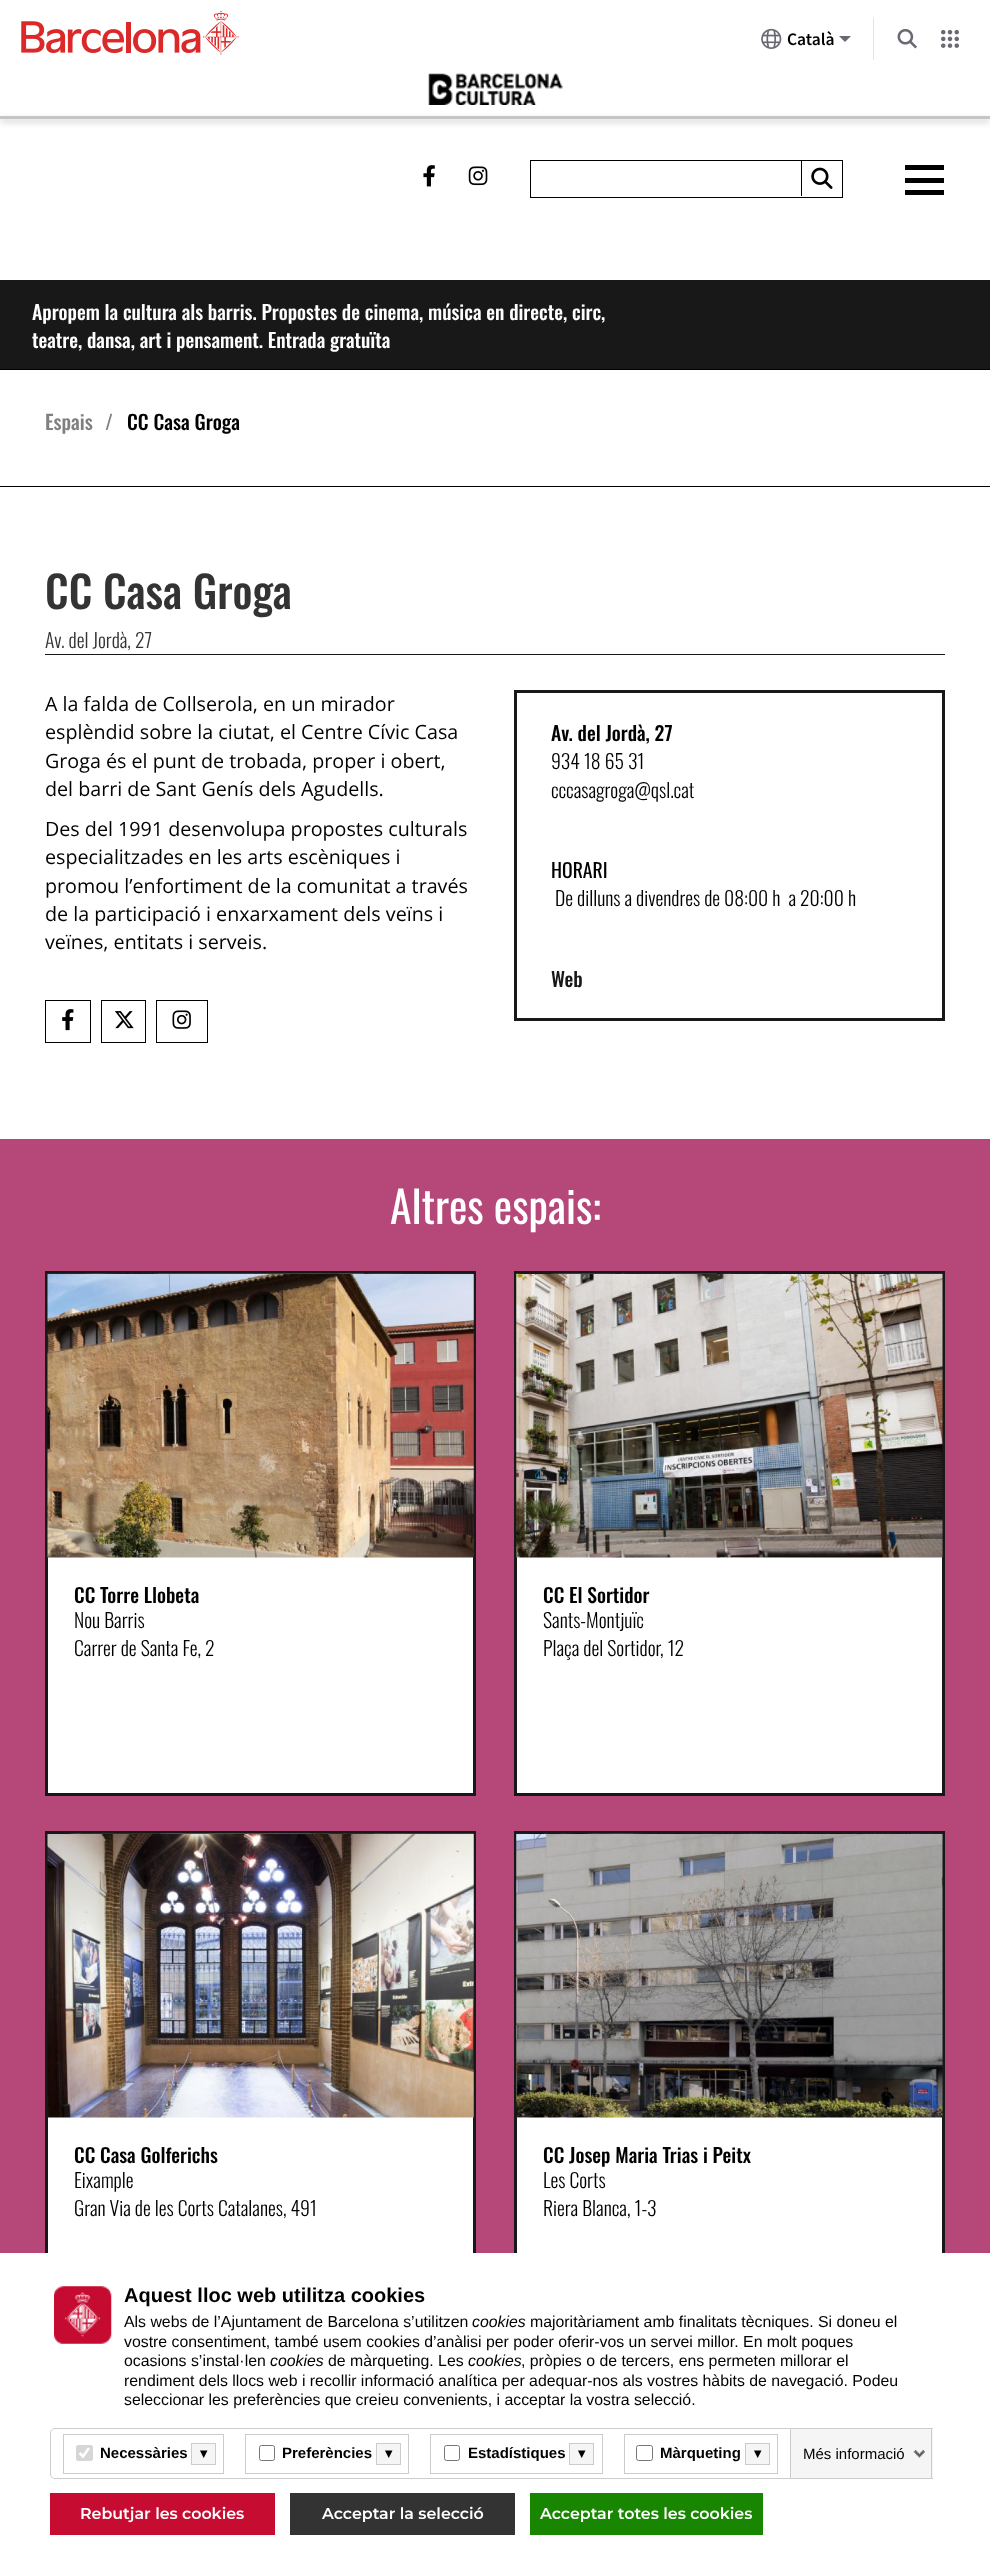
<?xml version="1.0" encoding="UTF-8"?>
<svg xmlns="http://www.w3.org/2000/svg" width="990" height="2566">
    <defs>
        <filter id="blur1" x="-50%" y="-200%" width="200%" height="500%"><feGaussianBlur stdDeviation="3"/></filter>
    </defs>
    <rect width="100%" height="100%" fill="#FFFFFF"/>
    <image x="21" y="10" width="218" height="45" href="img_01.png"/>
    <rect x="873" y="18" width="1" height="42" fill="#E5E5E5"/>
    <image x="761" y="28" width="21" height="21" href="img_02.png"/>
    <text x="787" y="45" font-family="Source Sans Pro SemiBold" font-size="17.5" font-weight="600" fill="#000000">Català</text>
    <path d="M 839 36 L 845 42 L 851 36 Z" fill="#696973"/>
    <image x="897" y="29" width="20" height="20" href="img_03.png"/>
    <image x="941" y="29" width="18" height="19" href="img_04.png"/>
    <image x="428" y="73" width="135" height="32" href="img_05.png"/>
    <rect x="0" y="119" width="990" height="3" fill="#C5C5C5" filter="url(#blur1)"/>
    <rect x="0" y="116" width="990" height="3" fill="#C5C5C5"/>
    <image x="423" y="165" width="12" height="22" href="img_06.png"/>
    <image x="468" y="166" width="20" height="20" href="img_07.png"/>
    <rect x="530.5" y="160.5" width="312" height="37" fill="none" stroke="#000000"/>
    <rect x="801" y="160" width="1" height="36" fill="#000000"/>
    <image x="811" y="167" width="22" height="22" href="img_08.png"/>
    <rect x="905" y="165" width="39" height="5" fill="#000000"/>
    <rect x="905" y="178" width="39" height="5" fill="#000000"/>
    <rect x="905" y="190" width="39" height="5" fill="#000000"/>
    <rect x="0" y="280" width="990" height="89" fill="#181819"/>
    <text font-family="Oswald" font-size="19.7" font-weight="500" fill="#FFFFFF">
        <tspan x="32" y="320">Apropem la cultura als barris. Propostes de cinema, música en directe, circ,</tspan>
        <tspan x="32" y="348">teatre, dansa, art i pensament. Entrada gratuïta</tspan>
    </text>
    <rect x="0" y="369" width="990" height="1" fill="#000000"/>
    <rect x="0" y="486" width="990" height="1" fill="#000000"/>
    <text x="45" y="430" font-family="Oswald" font-size="20" font-weight="500" fill="#808080">Espais</text>
    <text x="105" y="430" font-family="Oswald" font-size="20" font-weight="500" fill="#808080">/</text>
    <text x="127" y="430" font-family="Oswald" font-size="20" font-weight="500" fill="#000000">CC Casa Groga</text>
    <text x="45" y="609" font-family="Oswald" font-size="43.75" font-weight="500" fill="#333333">CC Casa Groga</text>
    <rect x="45" y="654" width="900" height="1" fill="#181819"/>
    <text x="45" y="648" font-family="Oswald" font-size="19.7" font-weight="300" fill="#333333">Av. del Jordà, 27</text>
    <text font-family="Open Sans" font-size="19.7" fill="#000000">
        <tspan x="45" y="711">A la falda de Collserola, en un mirador</tspan>
        <tspan x="45" y="739">esplèndid sobre la ciutat, el Centre Cívic Casa</tspan>
        <tspan x="45" y="768">Groga és el punt de trobada, proper i obert,</tspan>
        <tspan x="45" y="796">del barri de Sant Genís dels Agudells.</tspan>
    </text>
    <text font-family="Open Sans" font-size="19.7" fill="#000000">
        <tspan x="45" y="836">Des del 1991 desenvolupa propostes culturals</tspan>
        <tspan x="45" y="864">especialitzades en les arts escèniques i</tspan>
        <tspan x="45" y="893">promou l’enfortiment de la comunitat a través</tspan>
        <tspan x="45" y="921">de la participació i enxarxament dels veïns i</tspan>
        <tspan x="45" y="949">veïnes, entitats i serveis.</tspan>
    </text>
    <rect x="45.5" y="1000.5" width="45" height="42" fill="none" stroke="#000000"/>
    <image x="62" y="1009" width="12" height="22" href="img_09.png"/>
    <rect x="101.5" y="1000.5" width="44" height="42" fill="none" stroke="#000000"/>
    <image x="115" y="1011" width="19" height="18" href="img_10.png"/>
    <rect x="156.5" y="1000.5" width="51" height="42" fill="none" stroke="#000000"/>
    <image x="172" y="1010" width="19" height="19" href="img_11.png"/>
    <rect x="515.5" y="691.5" width="428" height="328" fill="none" stroke="#181819" stroke-width="3"/>
    <text x="551" y="741" font-family="Oswald" font-size="19.7" font-weight="500" fill="#000000">Av. del Jordà, 27</text>
    <text font-family="Oswald" font-size="19.7" font-weight="300" fill="#000000">
        <tspan x="551" y="769">934 18 65 31</tspan>
        <tspan x="551" y="798">cccasagroga@qsl.cat</tspan>
    </text>
    <text x="551" y="878" font-family="Oswald" font-size="19.7" fill="#000000">HORARI</text>
    <text x="555" y="906" font-family="Oswald" font-size="19.7" font-weight="300" fill="#000000" xml:space="preserve">De dilluns a divendres de 08:00 h  a 20:00 h</text>
    <text x="551" y="987" font-family="Oswald" font-size="19.7" font-weight="500" fill="#181819">Web</text>
    <rect x="0" y="1139" width="990" height="1114" fill="#B54878"/>
    <text x="390" y="1224" font-family="Oswald" font-size="43.75" fill="#FFFFFF">Altres espais:</text>
    <rect x="48" y="1557" width="425" height="236" fill="#FFFFFF"/>
    <rect x="46.5" y="1272.5" width="428" height="522" fill="none" stroke="#181819" stroke-width="3"/>
    <image x="47" y="1273" width="427" height="285" href="img_12.png"/>
    <text x="74" y="1603" font-family="Oswald" font-size="19.7" font-weight="500" fill="#000000">CC Torre Llobeta</text>
    <text font-family="Oswald" font-size="19.7" font-weight="300" fill="#000000">
        <tspan x="74" y="1628">Nou Barris</tspan>
        <tspan x="74" y="1656">Carrer de Santa Fe, 2</tspan>
    </text>
    <rect x="517" y="1557" width="425" height="236" fill="#FFFFFF"/>
    <rect x="515.5" y="1272.5" width="428" height="522" fill="none" stroke="#181819" stroke-width="3"/>
    <image x="516" y="1273" width="427" height="285" href="img_13.png"/>
    <text x="543" y="1603" font-family="Oswald" font-size="19.7" font-weight="500" fill="#000000">CC El Sortidor</text>
    <text font-family="Oswald" font-size="19.7" font-weight="300" fill="#000000">
        <tspan x="543" y="1628">Sants-Montjuïc</tspan>
        <tspan x="543" y="1656">Plaça del Sortidor, 12</tspan>
    </text>
    <rect x="48" y="2117" width="425" height="136" fill="#FFFFFF"/>
    <rect x="46.5" y="1832.5" width="428" height="522" fill="none" stroke="#181819" stroke-width="3"/>
    <image x="47" y="1833" width="427" height="285" href="img_14.png"/>
    <text x="74" y="2163" font-family="Oswald" font-size="19.7" font-weight="500" fill="#000000">CC Casa Golferichs</text>
    <text font-family="Oswald" font-size="19.7" font-weight="300" fill="#000000">
        <tspan x="74" y="2188">Eixample</tspan>
        <tspan x="74" y="2216">Gran Via de les Corts Catalanes, 491</tspan>
    </text>
    <rect x="517" y="2117" width="425" height="136" fill="#FFFFFF"/>
    <rect x="515.5" y="1832.5" width="428" height="522" fill="none" stroke="#181819" stroke-width="3"/>
    <image x="516" y="1833" width="427" height="285" href="img_15.png"/>
    <text x="543" y="2163" font-family="Oswald" font-size="19.7" font-weight="500" fill="#000000">CC Josep Maria Trias i Peitx</text>
    <text font-family="Oswald" font-size="19.7" font-weight="300" fill="#000000">
        <tspan x="543" y="2188">Les Corts</tspan>
        <tspan x="543" y="2216">Riera Blanca, 1-3</tspan>
    </text>
    <rect x="45" y="2253" width="900" height="103" fill="#FFFFFF"/>
    <image x="54" y="2286" width="58" height="58" href="img_16.png"/>
    <text x="124" y="2302" font-family="Liberation Sans" font-size="20" font-weight="700" fill="#000000">Aquest lloc web utilitza cookies</text>
    <text x="124" y="2327" font-family="Liberation Sans" font-size="15.85" fill="#000000">Als webs de l’Ajuntament de Barcelona s’utilitzen</text>
    <text x="472" y="2327" font-family="Liberation Sans" font-size="15.85" font-style="italic" fill="#000000">cookies</text>
    <text x="530" y="2327" font-family="Liberation Sans" font-size="15.85" fill="#000000">majoritàriament amb finalitats tècniques. Si doneu el</text>
    <text font-family="Liberation Sans" font-size="15.85" fill="#000000">
        <tspan x="124" y="2347">vostre consentiment, també usem cookies d’anàlisi per poder oferir-vos un servei millor. En molt poques</tspan>
        <tspan x="124" y="2366">ocasions s’instal·len</tspan>
    </text>
    <text x="270" y="2366" font-family="Liberation Sans" font-size="15.85" font-style="italic" fill="#000000">cookies</text>
    <text x="328" y="2366" font-family="Liberation Sans" font-size="15.85" fill="#000000">de màrqueting. Les</text>
    <text x="468" y="2366" font-family="Liberation Sans" font-size="15.85" font-style="italic" fill="#000000">cookies</text>
    <text x="521" y="2366" font-family="Liberation Sans" font-size="15.85" fill="#000000">, pròpies o de tercers, ens permeten millorar el</text>
    <text font-family="Liberation Sans" font-size="15.85" fill="#000000">
        <tspan x="124" y="2386">rendiment dels llocs web i recollir informació analítica per adequar-nos als vostres hàbits de navegació. Podeu</tspan>
        <tspan x="124" y="2405">seleccionar les preferències que creieu convenients, i acceptar la vostra selecció.</tspan>
    </text>
    <path d="M 55 2428.5 H 790.5 V 2478.5 H 55 C 52.5 2478.5 50.5 2476.5 50.5 2474 V 2433 C 50.5 2430.5 52.5 2428.5 55 2428.5 Z" fill="none" stroke="#CCCCCC"/>
    <rect x="63.5" y="2434.5" width="160" height="39" fill="none" stroke="#CCCCCC"/>
    <rect x="76" y="2445" width="17" height="16" rx="2.5" fill="#D6D6D6"/>
    <path d="M 79.5 2453 L 83 2456.5 L 89 2448" fill="none" stroke="#FFFFFF" stroke-width="2.6"/>
    <text x="100" y="2458" font-family="Liberation Sans" font-size="15" font-weight="700" fill="#000000">Necessàries</text>
    <rect x="191.5" y="2443.5" width="24" height="21" fill="#F5F5F5" stroke="#CCCCCC"/>
    <text x="200" y="2458" font-family="DejaVu Sans" font-size="14" font-weight="700" fill="#000000">▾</text>
    <rect x="245.5" y="2434.5" width="163" height="39" fill="none" stroke="#CCCCCC"/>
    <rect x="259.5" y="2445.5" width="15" height="15" rx="2" fill="none" stroke="#767676"/>
    <text x="282" y="2458" font-family="Liberation Sans" font-size="15" font-weight="700" fill="#000000">Preferències</text>
    <rect x="376.5" y="2443.5" width="24" height="21" fill="#F5F5F5" stroke="#CCCCCC"/>
    <text x="385" y="2458" font-family="DejaVu Sans" font-size="14" font-weight="700" fill="#000000">▾</text>
    <rect x="430.5" y="2434.5" width="172" height="39" fill="none" stroke="#CCCCCC"/>
    <rect x="444.5" y="2445.5" width="15" height="15" rx="2" fill="none" stroke="#767676"/>
    <text x="468" y="2458" font-family="Liberation Sans" font-size="15" font-weight="700" fill="#000000">Estadístiques</text>
    <rect x="569.5" y="2443.5" width="24" height="21" fill="#F5F5F5" stroke="#CCCCCC"/>
    <text x="578" y="2458" font-family="DejaVu Sans" font-size="14" font-weight="700" fill="#000000">▾</text>
    <rect x="624.5" y="2434.5" width="153" height="39" fill="none" stroke="#CCCCCC"/>
    <rect x="636.5" y="2445.5" width="16" height="15" rx="2" fill="none" stroke="#767676"/>
    <text x="660" y="2458" font-family="Liberation Sans" font-size="15" font-weight="700" fill="#000000">Màrqueting</text>
    <rect x="745.5" y="2443.5" width="24" height="21" fill="#F5F5F5" stroke="#CCCCCC"/>
    <text x="754" y="2458" font-family="DejaVu Sans" font-size="14" font-weight="700" fill="#000000">▾</text>
    <rect x="791" y="2429" width="142" height="49" fill="#F5F5F5"/>
    <rect x="791" y="2428" width="142" height="1" fill="#CCCCCC"/>
    <rect x="931" y="2428" width="1" height="51" fill="#CCCCCC"/>
    <rect x="791" y="2478" width="142" height="1" fill="#CCCCCC"/>
    <image x="913" y="2450" width="12" height="8" href="img_17.png"/>
    <text x="803" y="2459" font-family="Liberation Sans" font-size="15" fill="#000000">Més informació</text>
    <rect x="50" y="2493" width="225" height="42" fill="#C60C30"/>
    <text x="80" y="2519" font-family="Montserrat" font-size="15.85" font-weight="600" fill="#FFFFFF">Rebutjar les cookies</text>
    <rect x="290" y="2493" width="225" height="42" fill="#333333"/>
    <text x="322" y="2519" font-family="Montserrat" font-size="15.85" font-weight="600" fill="#FFFFFF">Acceptar la selecció</text>
    <rect x="530" y="2493" width="233" height="42" fill="#188600"/>
    <text x="540" y="2519" font-family="Montserrat" font-size="15.85" font-weight="600" fill="#FFFFFF">Acceptar totes les cookies</text>
</svg>
